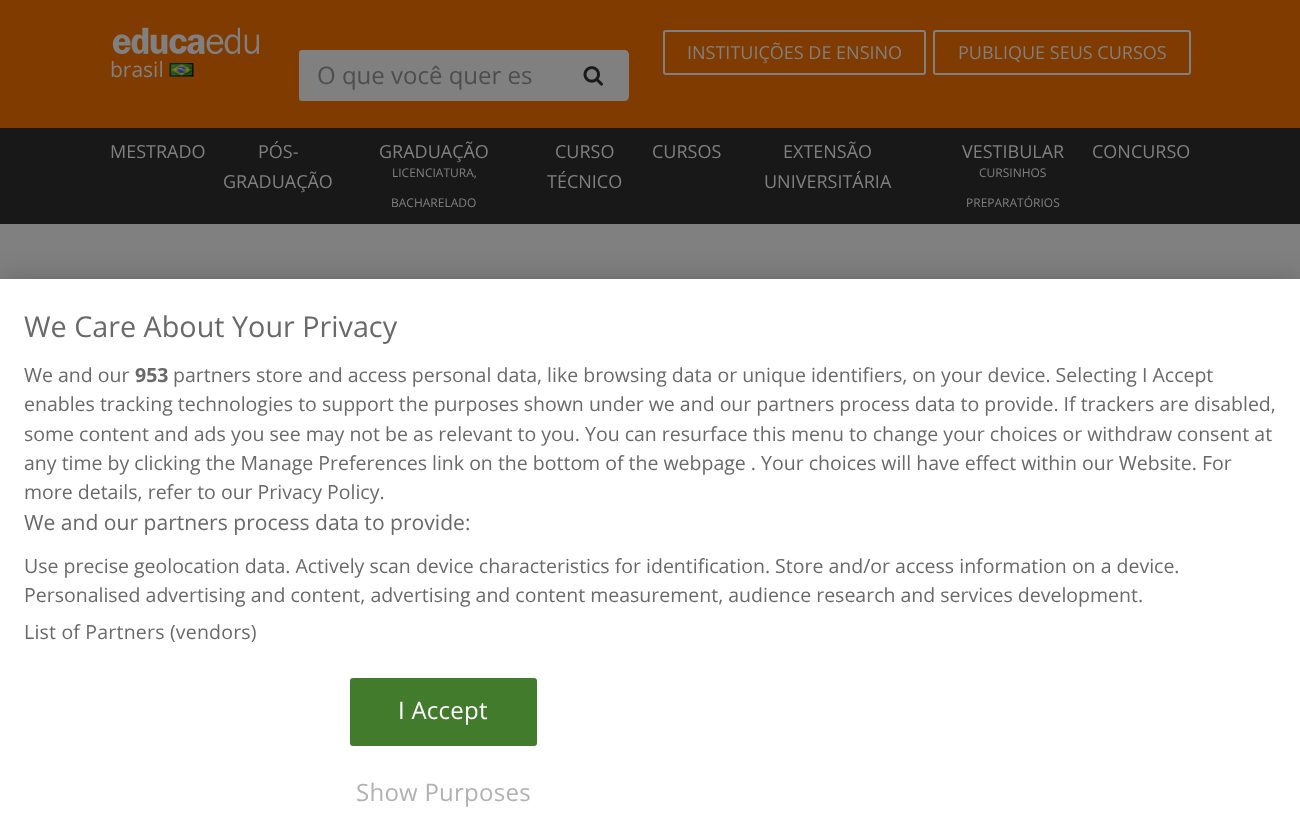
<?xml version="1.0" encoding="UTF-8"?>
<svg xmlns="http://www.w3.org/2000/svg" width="1300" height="839">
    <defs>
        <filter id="blur1" x="-50%" y="-200%" width="200%" height="500%"><feGaussianBlur stdDeviation="13.5"/></filter>
    </defs>
    <rect width="100%" height="100%" fill="#808080"/>
    <rect x="0" y="0" width="1300" height="128" fill="#803B00"/>
    <rect x="664" y="31" width="261" height="43" rx="2" fill="none" stroke="#808080" stroke-width="2"/>
    <text x="687" y="59" font-family="Open Sans" font-size="18" fill="#808080">INSTITUIÇÕES DE ENSINO</text>
    <rect x="934" y="31" width="256" height="43" rx="2" fill="none" stroke="#808080" stroke-width="2"/>
    <text x="958" y="59" font-family="Open Sans" font-size="18" fill="#808080">PUBLIQUE SEUS CURSOS</text>
    <image x="112" y="27" width="147" height="27" href="img_01.png"/>
    <text x="110" y="77" font-family="Open Sans" font-size="21" fill="#808080">brasil</text>
    <image x="169" y="63" width="25" height="14" href="img_02.png"/>
    <path d="M 302 51 H 560 V 100 H 302 C 301 100 300 99 300 98 V 53 C 300 52 301 51 302 51 Z" fill="#808080" stroke="#808080" stroke-width="2"/>
    <text x="317" y="84" font-family="Open Sans" font-size="24" fill="#4D4D4D">O que você quer es</text>
    <path d="M 560 50 H 624 C 627 50 629 52 629 55 V 96 C 629 99 627 101 624 101 H 560 Z" fill="#808080"/>
    <path d="M 560 50 L 561 51 C 568 51 625 50 626 52 L 627 51 L 624 50 Z" fill="#808080"/>
    <path d="M 627 51 C 628 52 628 53 628 54 V 96 C 628 97 628 98 627 99 L 626 98 C 628 97 628 53 626 52 Z" fill="#808080"/>
    <image x="583" y="66" width="20" height="20" href="img_03.png"/>
    <rect x="0" y="128" width="1300" height="96" fill="#181818"/>
    <text x="110" y="158" font-family="Open Sans" font-size="18" fill="#808080">MESTRADO</text>
    <text x="258" y="158" font-family="Open Sans" font-size="18" fill="#808080">PÓS-</text>
    <text x="223" y="188" font-family="Open Sans" font-size="18" fill="#808080">GRADUAÇÃO</text>
    <text x="379" y="158" font-family="Open Sans" font-size="18" fill="#808080">GRADUAÇÃO</text>
    <text x="392" y="177" font-family="Open Sans" font-size="12" fill="#808080">LICENCIATURA,</text>
    <text x="391" y="207" font-family="Open Sans" font-size="12" fill="#808080">BACHARELADO</text>
    <text x="555" y="158" font-family="Open Sans" font-size="18" fill="#808080">CURSO</text>
    <text x="547" y="188" font-family="Open Sans" font-size="18" fill="#808080">TÉCNICO</text>
    <text x="652" y="158" font-family="Open Sans" font-size="18" fill="#808080">CURSOS</text>
    <text x="783" y="158" font-family="Open Sans" font-size="18" fill="#808080">EXTENSÃO</text>
    <text x="764" y="188" font-family="Open Sans" font-size="18" fill="#808080">UNIVERSITÁRIA</text>
    <text x="962" y="158" font-family="Open Sans" font-size="18" fill="#808080">VESTIBULAR</text>
    <text x="979" y="177" font-family="Open Sans" font-size="12" fill="#808080">CURSINHOS</text>
    <text x="966" y="207" font-family="Open Sans" font-size="12" fill="#808080">PREPARATÓRIOS</text>
    <text x="1092" y="158" font-family="Open Sans" font-size="18" fill="#808080">CONCURSO</text>
    <rect x="0" y="279" width="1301" height="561" fill="#000000" fill-opacity="0.2" filter="url(#blur1)"/>
    <rect x="0" y="279" width="1300" height="560" fill="#FFFFFF"/>
    <text x="24" y="337" font-family="Open Sans" font-size="28.75" fill="#696969">We Care About Your Privacy</text>
    <text x="24" y="382" font-family="Open Sans" font-size="19.5" fill="#696969">We and our</text>
    <text x="135" y="382" font-family="Open Sans" font-size="19.5" font-weight="700" fill="#696969">953</text>
    <text x="173" y="382" font-family="Open Sans" font-size="19.5" fill="#696969">partners store and access personal data, like browsing data or unique identifiers, on your device. Selecting I Accept</text>
    <text font-family="Open Sans" font-size="19.5" fill="#696969">
        <tspan x="24" y="411">enables tracking technologies to support the purposes shown under we and our partners process data to provide. If trackers are disabled,</tspan>
        <tspan x="24" y="441">some content and ads you see may not be as relevant to you. You can resurface this menu to change your choices or withdraw consent at</tspan>
        <tspan x="24" y="470">any time by clicking the Manage Preferences link on the bottom of the webpage . Your choices will have effect within our Website. For</tspan>
        <tspan x="24" y="499">more details, refer to our Privacy Policy.</tspan>
    </text>
    <text x="24" y="530" font-family="Open Sans" font-size="21.1" fill="#696969">We and our partners process data to provide:</text>
    <text font-family="Open Sans" font-size="19.5" fill="#696969">
        <tspan x="24" y="573">Use precise geolocation data. Actively scan device characteristics for identification. Store and/or access information on a device.</tspan>
        <tspan x="24" y="602">Personalised advertising and content, advertising and content measurement, audience research and services development.</tspan>
    </text>
    <text x="24" y="639" font-family="Open Sans" font-size="19.5" letter-spacing="0.2" fill="#696969">List of Partners (vendors)</text>
    <rect x="351" y="679" width="185" height="66" rx="2" fill="#437B2D" stroke="#437B2D" stroke-width="2"/>
    <text x="398" y="719" font-family="Open Sans" font-size="24" letter-spacing="0.25" fill="#FFFFFF">I Accept</text>
    <text x="356" y="801" font-family="Open Sans" font-size="24" letter-spacing="0.25" fill="#B3B1B1">Show Purposes</text>
</svg>
